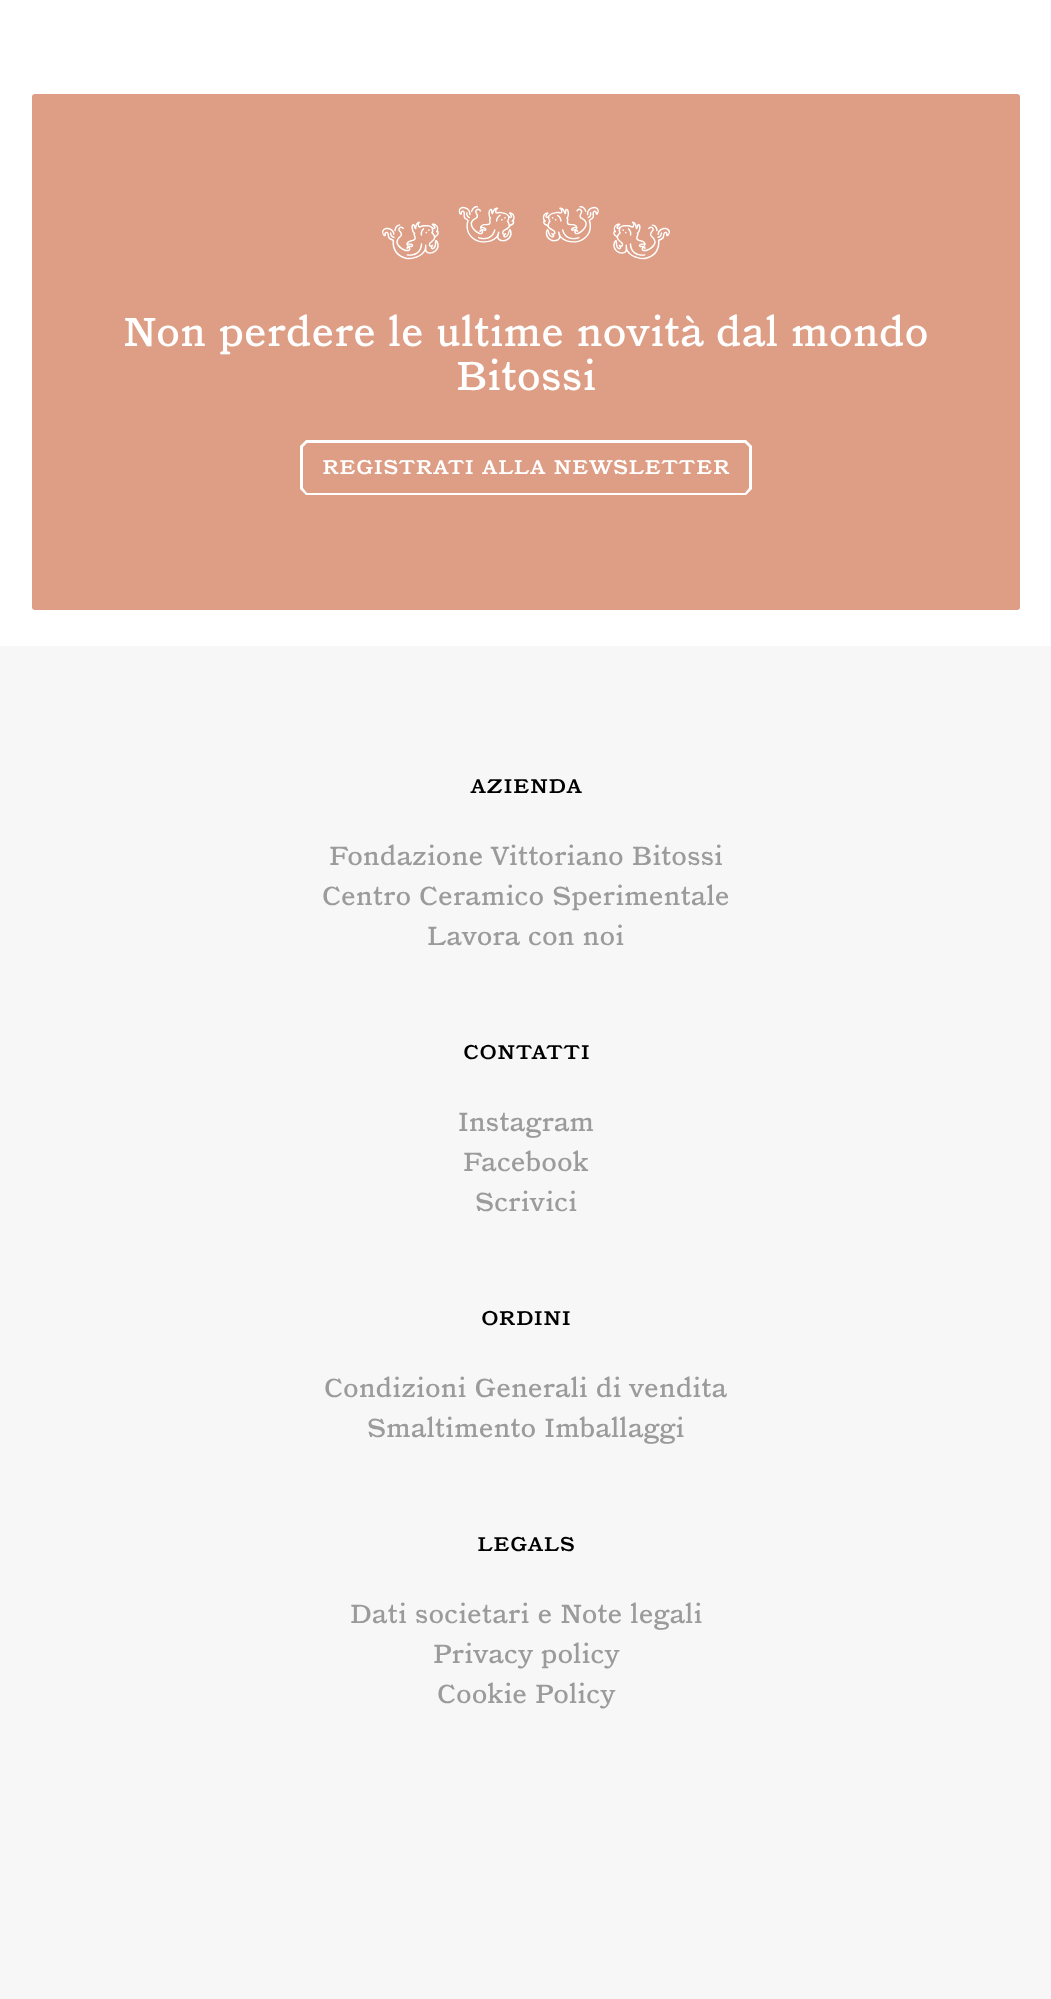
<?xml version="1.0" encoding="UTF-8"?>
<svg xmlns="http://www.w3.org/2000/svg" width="1051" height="1999">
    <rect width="100%" height="100%" fill="#FFFFFF"/>
    <rect x="32" y="94" width="988" height="516" rx="3" fill="#DD9E85"/>
    <image x="382" y="206" width="288" height="54" href="img_01.png"/>
    <text x="123" y="346" font-family="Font" font-size="40" fill="#FFFFFF">Non perdere le ultime novità dal mondo</text>
    <text x="456" y="390" font-family="Font" font-size="40" fill="#FFFFFF">Bitossi</text>
    <path d="M 300 446 V 489 L 306 495 H 746 L 752 489 V 446 L 746 440 H 306 Z M 303 488 V 447 L 307 443 H 745 L 749 447 V 488 L 745 493 H 307 Z" fill="#FFFFFF" fill-rule="evenodd"/>
    <text x="322" y="474" font-family="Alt" font-size="26" fill="#FFFFFF">Registrati alla newsletter</text>
    <rect x="0" y="646" width="1051" height="1353" fill="#F7F7F7"/>
    <text x="470" y="793" font-family="Alt" font-size="26" fill="#000000">Azienda</text>
    <text x="329" y="865" font-family="Font" font-size="26" fill="#9B9B9B">Fondazione Vittoriano Bitossi</text>
    <text x="322" y="905" font-family="Font" font-size="26" fill="#9B9B9B">Centro Ceramico Sperimentale</text>
    <text x="427" y="945" font-family="Font" font-size="26" fill="#9B9B9B">Lavora con noi</text>
    <text x="463" y="1059" font-family="Alt" font-size="26" fill="#000000">Contatti</text>
    <text x="458" y="1131" font-family="Font" font-size="26" fill="#9B9B9B">Instagram</text>
    <text x="463" y="1171" font-family="Font" font-size="26" fill="#9B9B9B">Facebook</text>
    <text x="475" y="1211" font-family="Font" font-size="26" fill="#9B9B9B">Scrivici</text>
    <text x="481" y="1325" font-family="Alt" font-size="26" fill="#000000">Ordini</text>
    <text x="324" y="1397" font-family="Font" font-size="26" fill="#9B9B9B">Condizioni Generali di vendita</text>
    <text x="367" y="1437" font-family="Font" font-size="26" fill="#9B9B9B">Smaltimento Imballaggi</text>
    <text x="477" y="1551" font-family="Alt" font-size="26" fill="#000000">Legals</text>
    <text x="350" y="1623" font-family="Font" font-size="26" fill="#9B9B9B">Dati societari e Note legali</text>
    <text x="433" y="1663" font-family="Font" font-size="26" fill="#9B9B9B">Privacy policy</text>
    <text x="437" y="1703" font-family="Font" font-size="26" fill="#9B9B9B">Cookie Policy</text>
</svg>
